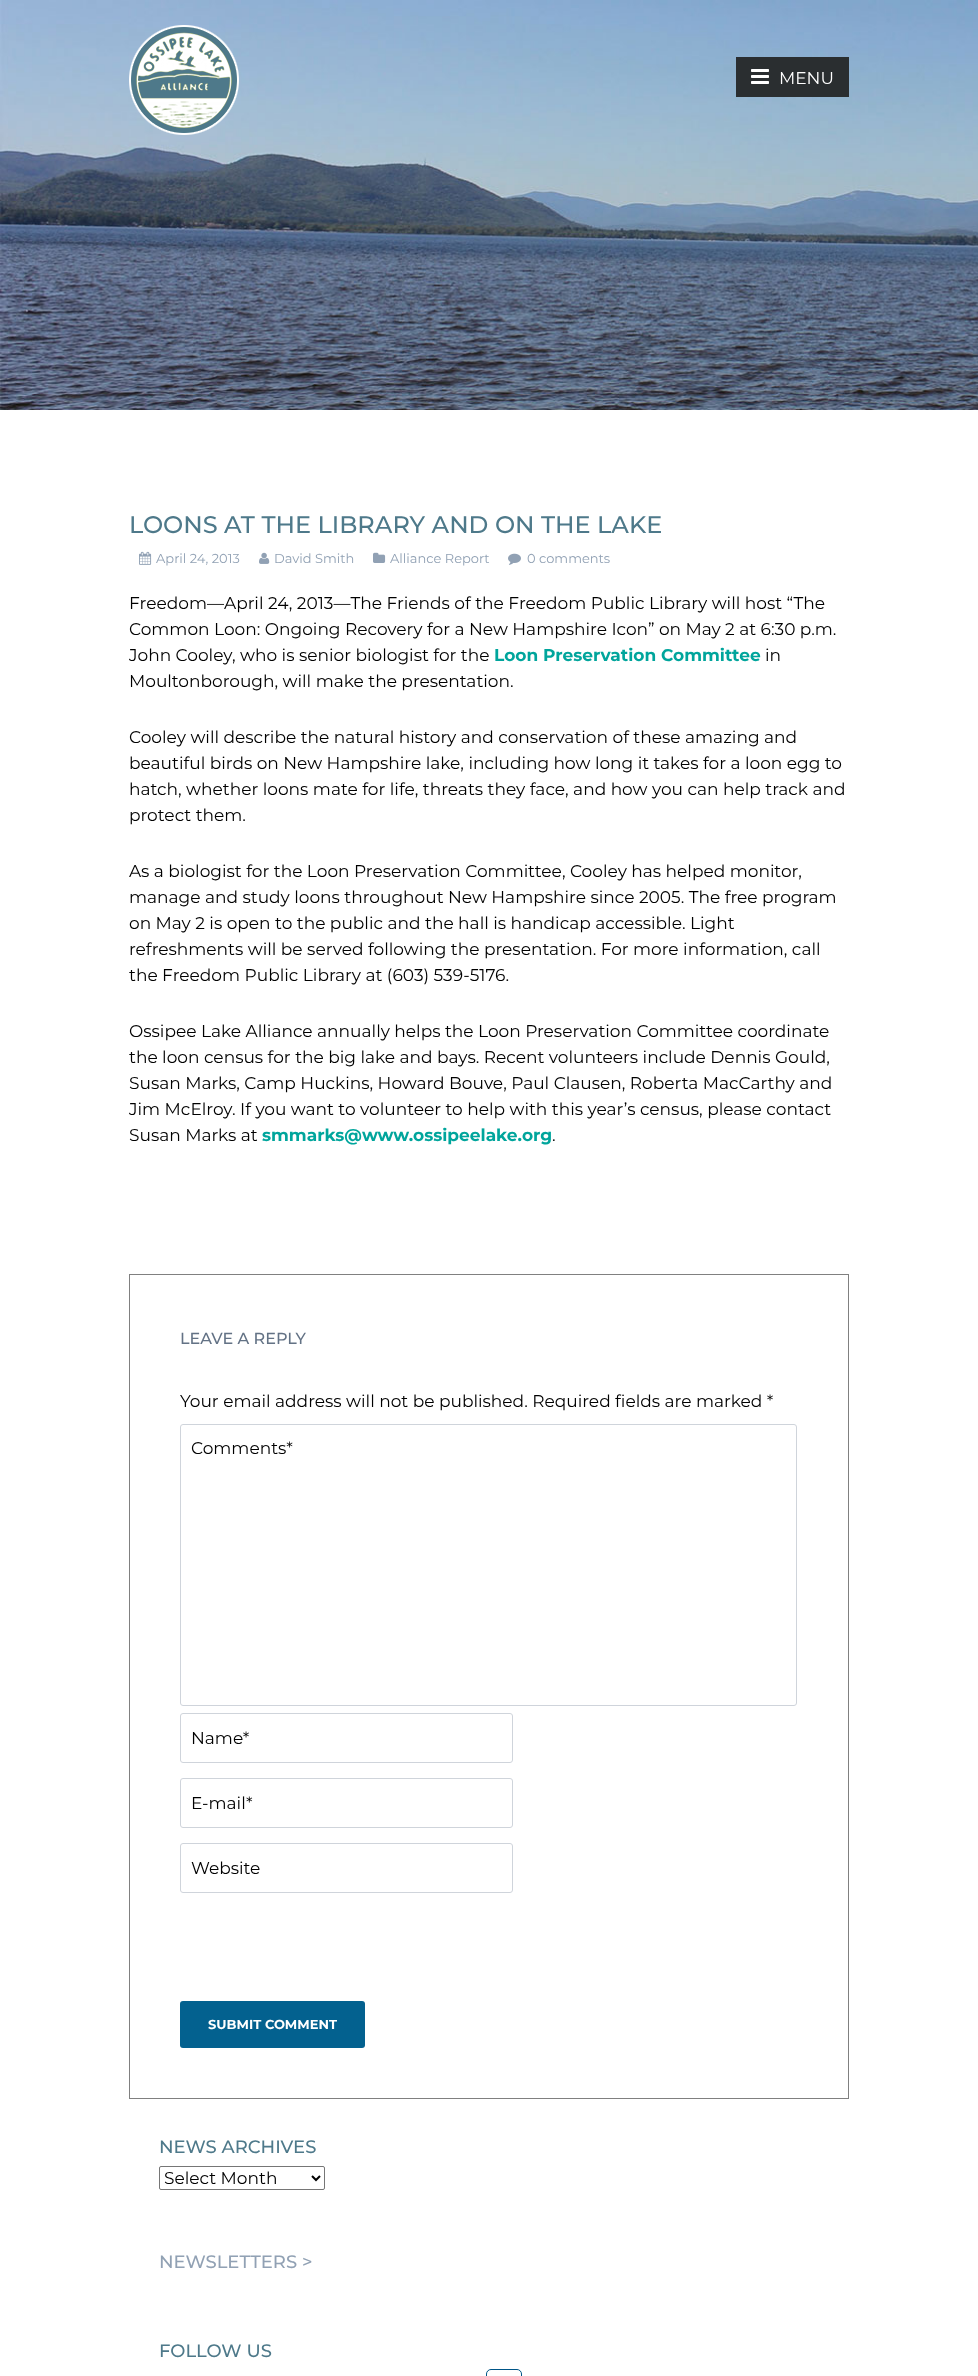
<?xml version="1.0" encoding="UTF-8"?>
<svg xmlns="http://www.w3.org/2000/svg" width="978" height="2376">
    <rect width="100%" height="100%" fill="#FFFFFF"/>
    <image x="0" y="0" width="978" height="410" href="img_01.png"/>
    <image x="129" y="25" width="110" height="110" href="img_02.png"/>
    <rect x="736" y="57" width="113" height="40" fill="#2A2E30"/>
    <image x="751" y="69" width="18" height="15" href="img_03.png"/>
    <text x="779" y="84" font-family="Montserrat" font-size="17" font-weight="100" fill="#FFFFFF">MENU</text>
    <text x="129" y="533" font-family="Montserrat" font-size="24" font-weight="500" fill="#4E798A">LOONS AT THE LIBRARY AND ON THE LAKE</text>
    <image x="139" y="551" width="13" height="14" href="img_04.png"/>
    <text x="156" y="563" font-family="Montserrat" font-size="13" font-weight="100" fill="#91A1B4">April 24, 2013</text>
    <image x="259" y="552" width="11" height="12" href="img_05.png"/>
    <text x="274" y="563" font-family="Montserrat" font-size="13" font-weight="100" fill="#91A1B4">David Smith</text>
    <image x="373" y="552" width="13" height="11" href="img_06.png"/>
    <text x="390" y="563" font-family="Montserrat" font-size="13" font-weight="100" fill="#91A1B4">Alliance Report</text>
    <image x="508" y="553" width="13" height="12" href="img_07.png"/>
    <text x="527" y="563" font-family="Montserrat" font-size="13" font-weight="100" fill="#91A1B4">0 comments</text>
    <text font-family="Montserrat" font-size="17" font-weight="100" fill="#000000">
        <tspan x="129" y="609">Freedom—April 24, 2013—The Friends of the Freedom Public Library will host “The</tspan>
        <tspan x="129" y="635">Common Loon: Ongoing Recovery for a New Hampshire Icon” on May 2 at 6:30 p.m.</tspan>
        <tspan x="129" y="661">John Cooley, who is senior biologist for the</tspan>
    </text>
    <text x="494" y="661" font-family="Montserrat" font-size="17" font-weight="700" fill="#00A59C">Loon Preservation Committee</text>
    <text x="765" y="661" font-family="Montserrat" font-size="17" font-weight="100" fill="#000000">in</text>
    <text x="129" y="687" font-family="Montserrat" font-size="17" font-weight="100" fill="#000000">Moultonborough, will make the presentation.</text>
    <text font-family="Montserrat" font-size="17" font-weight="100" fill="#000000">
        <tspan x="129" y="743">Cooley will describe the natural history and conservation of these amazing and</tspan>
        <tspan x="129" y="769">beautiful birds on New Hampshire lake, including how long it takes for a loon egg to</tspan>
        <tspan x="129" y="795">hatch, whether loons mate for life, threats they face, and how you can help track and</tspan>
        <tspan x="129" y="821">protect them.</tspan>
    </text>
    <text font-family="Montserrat" font-size="17" font-weight="100" fill="#000000">
        <tspan x="129" y="877">As a biologist for the Loon Preservation Committee, Cooley has helped monitor,</tspan>
        <tspan x="129" y="903">manage and study loons throughout New Hampshire since 2005. The free program</tspan>
        <tspan x="129" y="929">on May 2 is open to the public and the hall is handicap accessible. Light</tspan>
        <tspan x="129" y="955">refreshments will be served following the presentation. For more information, call</tspan>
        <tspan x="129" y="981">the Freedom Public Library at (603) 539-5176.</tspan>
    </text>
    <text font-family="Montserrat" font-size="17" font-weight="100" fill="#000000">
        <tspan x="129" y="1037">Ossipee Lake Alliance annually helps the Loon Preservation Committee coordinate</tspan>
        <tspan x="129" y="1063">the loon census for the big lake and bays. Recent volunteers include Dennis Gould,</tspan>
        <tspan x="129" y="1089">Susan Marks, Camp Huckins, Howard Bouve, Paul Clausen, Roberta MacCarthy and</tspan>
        <tspan x="129" y="1115">Jim McElroy. If you want to volunteer to help with this year’s census, please contact</tspan>
        <tspan x="129" y="1141">Susan Marks at</tspan>
    </text>
    <text x="262" y="1141" font-family="Montserrat" font-size="17" font-weight="700" fill="#00A59C">smmarks@www.ossipeelake.org</text>
    <text x="552" y="1141" font-family="Montserrat" font-size="17" font-weight="100" fill="#000000">.</text>
    <rect x="129.5" y="1274.5" width="719" height="824" fill="none" stroke="#808080"/>
    <text x="180" y="1344" font-family="Montserrat" font-size="16" font-weight="500" fill="#637285">LEAVE A REPLY</text>
    <text x="180" y="1407" font-family="Montserrat" font-size="17" font-weight="100" fill="#000000">Your email address will not be published. Required fields are marked *</text>
    <rect x="180.5" y="1424.5" width="616" height="281" rx="2.5" fill="none" stroke="#CFD4DB"/>
    <text x="191" y="1454" font-family="Montserrat" font-size="17" font-weight="100" fill="#000000">Comments*</text>
    <rect x="180.5" y="1713.5" width="332" height="49" rx="2.5" fill="none" stroke="#CFD4DB"/>
    <text x="191" y="1744" font-family="Montserrat" font-size="17" font-weight="100" fill="#000000">Name*</text>
    <rect x="180.5" y="1778.5" width="332" height="49" rx="2.5" fill="none" stroke="#CFD4DB"/>
    <text x="191" y="1809" font-family="Montserrat" font-size="17" font-weight="100" fill="#000000">E-mail*</text>
    <rect x="180.5" y="1843.5" width="332" height="49" rx="2.5" fill="none" stroke="#CFD4DB"/>
    <text x="191" y="1874" font-family="Montserrat" font-size="17" font-weight="100" fill="#000000">Website</text>
    <rect x="180" y="2001" width="185" height="47" rx="3" fill="#03618F"/>
    <text x="208" y="2029" font-family="Montserrat" font-size="13" font-weight="700" fill="#FFFFFF">SUBMIT COMMENT</text>
    <text x="159" y="2153" font-family="Montserrat" font-size="18" font-weight="500" fill="#4E798A">NEWS ARCHIVES</text>
    <rect x="159.5" y="2166.5" width="165" height="23" rx="1.5" fill="none" stroke="#767676"/>
    <path d="M 312 2176 L 316 2180 L 320 2176" fill="none" stroke="#000000" stroke-width="2"/>
    <text x="164" y="2184" font-family="Montserrat" font-size="17" font-weight="100" fill="#000000">Select Month</text>
    <text x="159" y="2268" font-family="Montserrat" font-size="18" font-weight="500" fill="#91A1B4">NEWSLETTERS &gt;</text>
    <text x="159" y="2357" font-family="Montserrat" font-size="18" font-weight="500" fill="#4E798A">FOLLOW US</text>
    <rect x="486.5" y="2369.5" width="35" height="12" rx="4.5" fill="none" stroke="#005587"/>
</svg>
